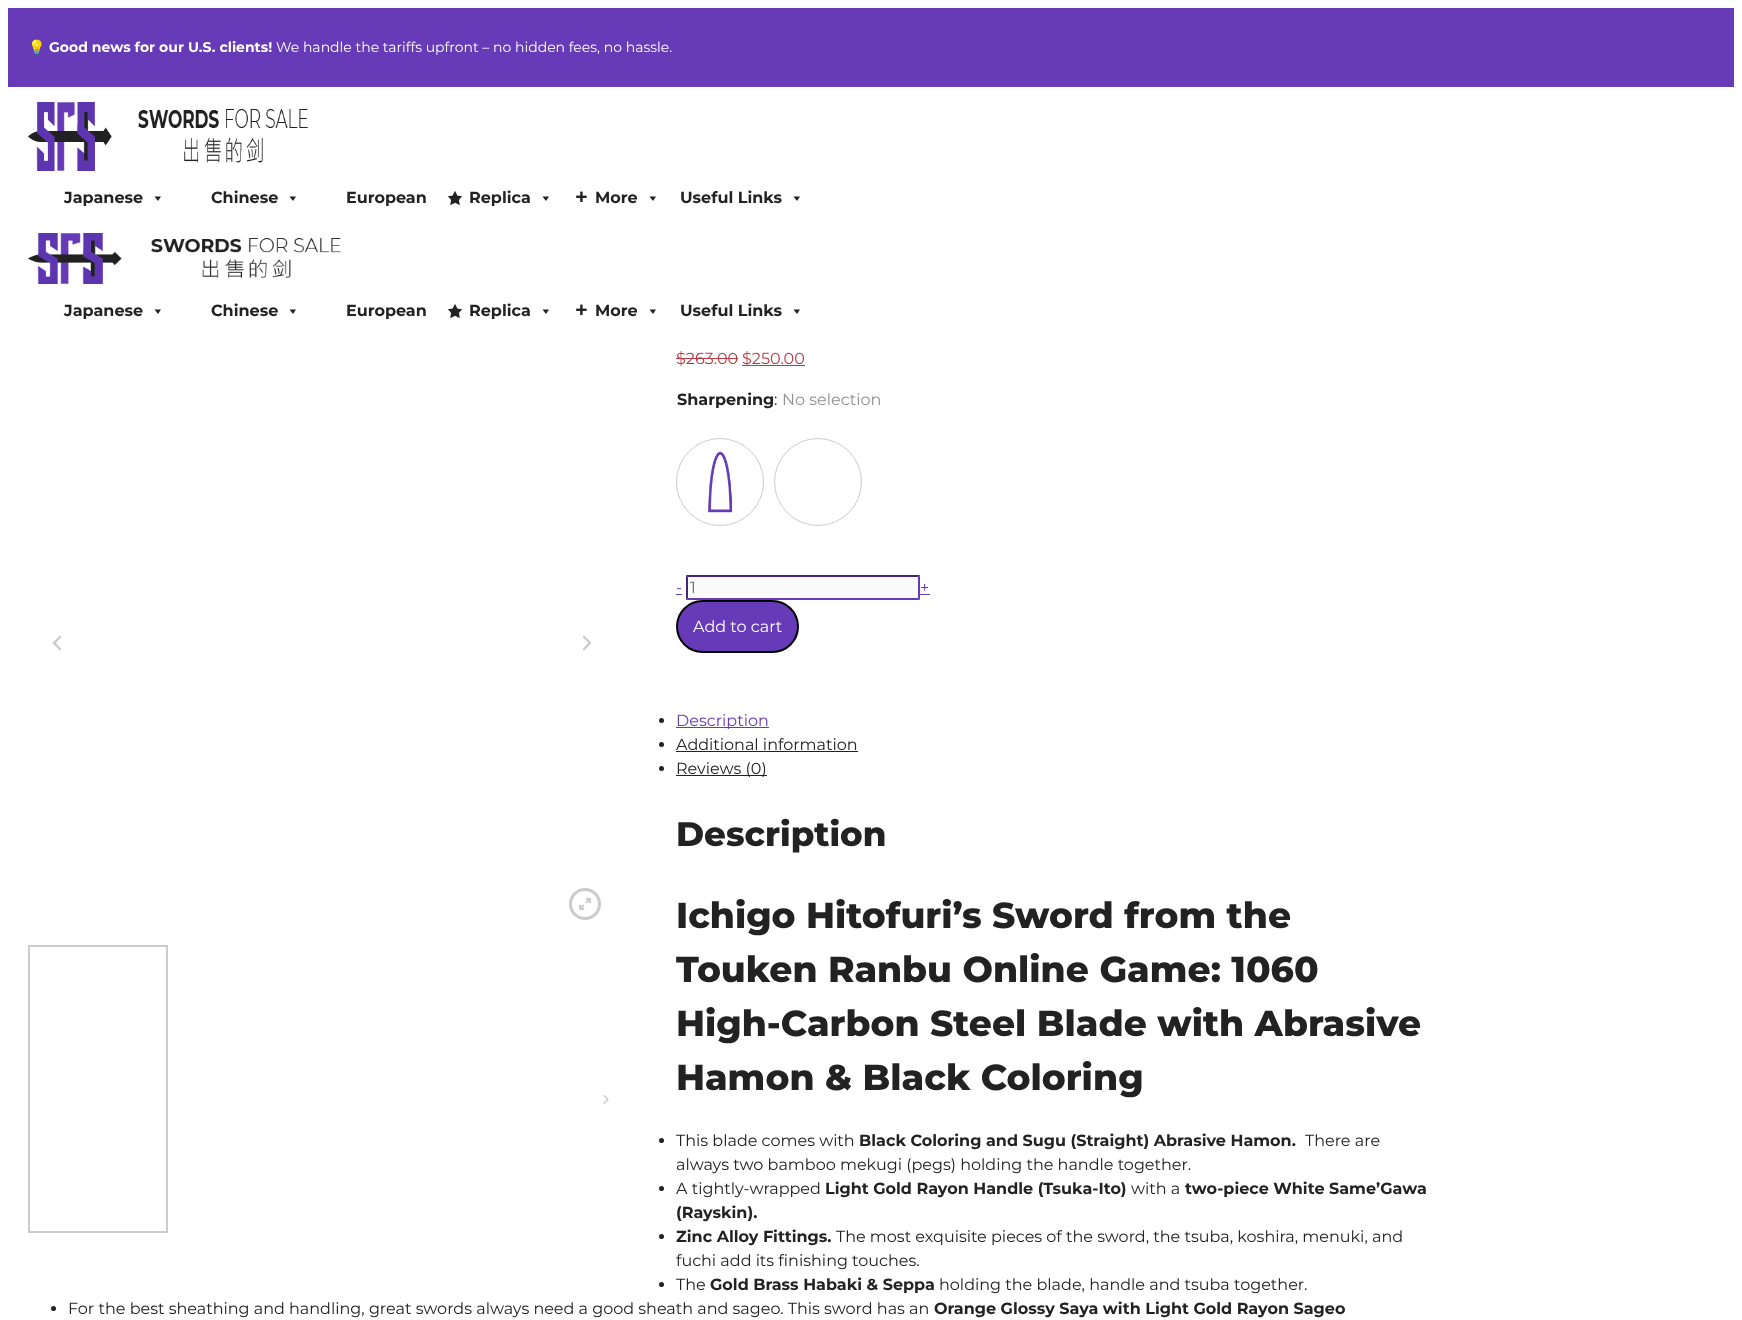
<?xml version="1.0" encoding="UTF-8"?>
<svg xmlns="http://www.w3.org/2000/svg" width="1742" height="1320">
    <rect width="100%" height="100%" fill="#FFFFFF"/>
    <rect x="8" y="8" width="1726" height="79" fill="#673AB7"/>
    <text x="28" y="52" font-family="Noto Color Emoji" font-size="14" fill="#FFFFFF">💡</text>
    <text x="49" y="52" font-family="Montserrat" font-size="14" font-weight="700" fill="#FFFFFF">Good news for our U.S. clients!</text>
    <text x="276" y="52" font-family="Montserrat" font-size="14" fill="#FFFFFF">We handle the tariffs upfront – no hidden fees, no hassle.</text>
    <image x="28" y="102" width="280" height="69" href="img_01.png"/>
    <text x="64" y="203" font-family="Montserrat" font-size="16" font-weight="700" fill="#222222">Japanese</text>
    <path d="M 161 196.5 L 158 201 L 154.5 196.5 Z" fill="#222222"/>
    <text x="211" y="203" font-family="Montserrat" font-size="16" font-weight="700" fill="#222222">Chinese</text>
    <path d="M 296 196.5 L 293 201 L 289.5 196.5 Z" fill="#222222"/>
    <text x="346" y="203" font-family="Montserrat" font-size="16" font-weight="700" fill="#222222">European</text>
    <image x="448" y="191" width="14" height="15" href="img_02.png"/>
    <text x="469" y="203" font-family="Montserrat" font-size="16" font-weight="700" fill="#222222">Replica</text>
    <path d="M 549 196.5 L 546 201 L 542.5 196.5 Z" fill="#222222"/>
    <image x="576" y="191" width="11" height="11" href="img_03.png"/>
    <text x="595" y="203" font-family="Montserrat" font-size="16" font-weight="700" fill="#222222">More</text>
    <path d="M 656 196.5 L 653 201 L 649.5 196.5 Z" fill="#222222"/>
    <text x="680" y="203" font-family="Montserrat" font-size="16" font-weight="700" fill="#222222">Useful Links</text>
    <path d="M 800 196.5 L 797 201 L 793.5 196.5 Z" fill="#222222"/>
    <image x="28" y="233" width="313" height="51" href="img_04.png"/>
    <text x="64" y="316" font-family="Montserrat" font-size="16" font-weight="700" fill="#222222">Japanese</text>
    <path d="M 161 309.5 L 158 314 L 154.5 309.5 Z" fill="#222222"/>
    <text x="211" y="316" font-family="Montserrat" font-size="16" font-weight="700" fill="#222222">Chinese</text>
    <path d="M 296 309.5 L 293 314 L 289.5 309.5 Z" fill="#222222"/>
    <text x="346" y="316" font-family="Montserrat" font-size="16" font-weight="700" fill="#222222">European</text>
    <image x="448" y="304" width="14" height="15" href="img_02.png"/>
    <text x="469" y="316" font-family="Montserrat" font-size="16" font-weight="700" fill="#222222">Replica</text>
    <path d="M 549 309.5 L 546 314 L 542.5 309.5 Z" fill="#222222"/>
    <image x="576" y="304" width="11" height="11" href="img_03.png"/>
    <text x="595" y="316" font-family="Montserrat" font-size="16" font-weight="700" fill="#222222">More</text>
    <path d="M 656 309.5 L 653 314 L 649.5 309.5 Z" fill="#222222"/>
    <text x="680" y="316" font-family="Montserrat" font-size="16" font-weight="700" fill="#222222">Useful Links</text>
    <path d="M 800 309.5 L 797 314 L 793.5 309.5 Z" fill="#222222"/>
    <text x="676" y="364" font-family="Montserrat" font-size="16" fill="#B83B43">$263.00</text>
    <rect x="676" y="358" width="62" height="1" fill="#B83B43"/>
    <rect x="742" y="365" width="63" height="1" fill="#B83B43"/>
    <text x="742" y="364" font-family="Montserrat" font-size="16" fill="#B83B43">$250.00</text>
    <text x="677" y="405" font-family="Montserrat" font-size="16" font-weight="700" fill="#222222">Sharpening</text>
    <text x="774" y="405" font-family="Montserrat" font-size="16" fill="#222222">:</text>
    <text x="782" y="405" font-family="Montserrat" font-size="16" fill="#919191">No selection</text>
    <circle cx="720" cy="482" r="43.5" fill="none" stroke="#CCCCCC"/>
    <image x="708" y="451" width="25" height="62" href="img_05.png"/>
    <circle cx="818" cy="482" r="43.5" fill="none" stroke="#CCCCCC"/>
    <text x="676" y="593" font-family="Montserrat" font-size="16" fill="#673AB7">-</text>
    <rect x="676" y="594" width="6" height="1" fill="#673AB7"/>
    <rect x="686" y="575" width="234" height="25" fill="#FAFAFA"/>
    <path d="M 686 575 H 920 L 918 577 H 688 Z" fill="#45277A"/>
    <path d="M 920 575 V 600 L 918 598 V 577 Z" fill="#673AB7"/>
    <path d="M 920 600 H 686 L 688 598 H 918 Z" fill="#673AB7"/>
    <path d="M 686 600 V 575 L 688 577 V 598 Z" fill="#45277A"/>
    <text x="690" y="593" font-family="Montserrat" font-size="16" fill="#666666">1</text>
    <text x="920" y="593" font-family="Montserrat" font-size="16" fill="#673AB7">+</text>
    <rect x="920" y="594" width="10" height="1" fill="#673AB7"/>
    <rect x="677" y="601" width="121" height="51" rx="25.5" fill="#673AB7" stroke="#000000" stroke-width="2"/>
    <text x="693" y="632" font-family="Montserrat" font-size="16" fill="#FFFFFF">Add to cart</text>
    <image x="52" y="635" width="10" height="16" href="img_06.png"/>
    <image x="582" y="635" width="10" height="16" href="img_07.png"/>
    <image x="569" y="888" width="32" height="32" href="img_08.png"/>
    <rect x="29" y="946" width="138" height="286" fill="none" stroke="#CBCBCB" stroke-width="2"/>
    <image x="603" y="1095" width="6" height="9" href="img_09.png"/>
    <circle cx="661.5" cy="720.5" r="2.5" fill="#222222"/>
    <rect x="676" y="727" width="93" height="1" fill="#673AB7"/>
    <text x="676" y="726" font-family="Montserrat" font-size="16" fill="#673AB7">Description</text>
    <circle cx="661.5" cy="744.5" r="2.5" fill="#222222"/>
    <text x="676" y="750" font-family="Montserrat" font-size="16" fill="#222222">Additional information</text>
    <rect x="676" y="751" width="182" height="1" fill="#222222"/>
    <circle cx="661.5" cy="768.5" r="2.5" fill="#222222"/>
    <rect x="676" y="775" width="91" height="1" fill="#222222"/>
    <text x="676" y="774" font-family="Montserrat" font-size="16" fill="#222222">Reviews (0)</text>
    <text x="676" y="846" font-family="Montserrat" font-size="34" font-weight="800" fill="#222222">Description</text>
    <text font-family="Montserrat" font-size="36" font-weight="800" fill="#222222">
        <tspan x="676" y="928">Ichigo Hitofuri’s Sword from the</tspan>
        <tspan x="676" y="982">Touken Ranbu Online Game: 1060</tspan>
        <tspan x="676" y="1036">High-Carbon Steel Blade with Abrasive</tspan>
        <tspan x="676" y="1090">Hamon &amp; Black Coloring</tspan>
    </text>
    <circle cx="661.5" cy="1140.5" r="2.5" fill="#222222"/>
    <text x="676" y="1146" font-family="Montserrat" font-size="16" fill="#222222">This blade comes with</text>
    <text x="859" y="1146" font-family="Montserrat" font-size="16" font-weight="700" fill="#222222">Black Coloring and Sugu (Straight) Abrasive Hamon.</text>
    <text x="1305" y="1146" font-family="Montserrat" font-size="16" fill="#222222">There are</text>
    <text x="676" y="1170" font-family="Montserrat" font-size="16" fill="#222222">always two bamboo mekugi (pegs) holding the handle together.</text>
    <circle cx="661.5" cy="1188.5" r="2.5" fill="#222222"/>
    <text x="676" y="1194" font-family="Montserrat" font-size="16" fill="#222222">A tightly-wrapped</text>
    <text x="825" y="1194" font-family="Montserrat" font-size="16" font-weight="700" fill="#222222">Light Gold Rayon Handle (Tsuka-Ito)</text>
    <text x="1131" y="1194" font-family="Montserrat" font-size="16" fill="#222222">with a</text>
    <text x="1185" y="1194" font-family="Montserrat" font-size="16" font-weight="700" fill="#222222">two-piece White Same’Gawa</text>
    <text x="676" y="1218" font-family="Montserrat" font-size="16" font-weight="700" fill="#222222">(Rayskin).</text>
    <circle cx="661.5" cy="1236.5" r="2.5" fill="#222222"/>
    <text x="676" y="1242" font-family="Montserrat" font-size="16" font-weight="700" fill="#222222">Zinc Alloy Fittings.</text>
    <text x="836" y="1242" font-family="Montserrat" font-size="16" fill="#222222">The most exquisite pieces of the sword, the tsuba, koshira, menuki, and</text>
    <text x="676" y="1266" font-family="Montserrat" font-size="16" fill="#222222">fuchi add its finishing touches.</text>
    <circle cx="661.5" cy="1284.5" r="2.5" fill="#222222"/>
    <text x="676" y="1290" font-family="Montserrat" font-size="16" fill="#222222">The</text>
    <text x="710" y="1290" font-family="Montserrat" font-size="16" font-weight="700" fill="#222222">Gold Brass Habaki &amp; Seppa</text>
    <text x="939" y="1290" font-family="Montserrat" font-size="16" fill="#222222">holding the blade, handle and tsuba together.</text>
    <circle cx="53.5" cy="1308.5" r="2.5" fill="#222222"/>
    <text x="68" y="1314" font-family="Montserrat" font-size="16" fill="#222222">For the best sheathing and handling, great swords always need a good sheath and sageo. This sword has an</text>
    <text x="934" y="1314" font-family="Montserrat" font-size="16" font-weight="700" fill="#222222">Orange Glossy Saya with Light Gold Rayon Sageo</text>
</svg>
